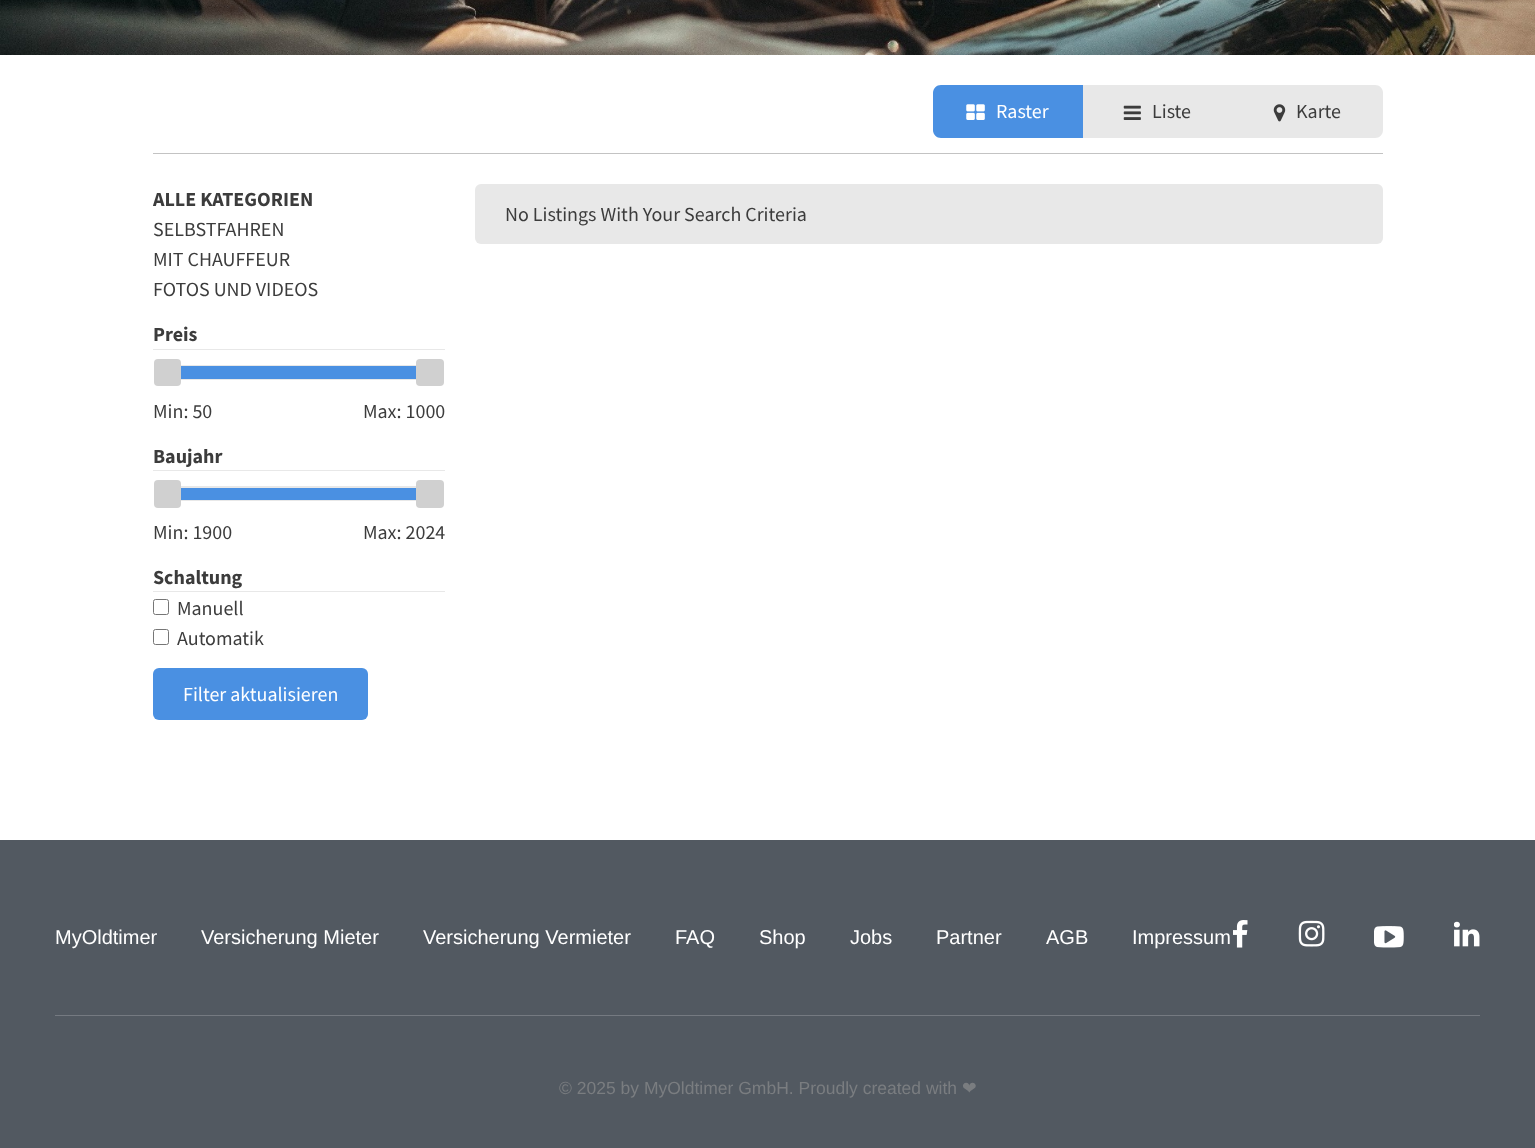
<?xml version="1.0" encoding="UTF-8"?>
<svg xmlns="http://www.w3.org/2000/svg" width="1535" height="1148">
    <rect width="100%" height="100%" fill="#FFFFFF"/>
    <image x="0" y="0" width="1535" height="55" href="img_01.png"/>
    <rect x="153" y="153" width="1230" height="1" fill="#C3C3C3"/>
    <path d="M 941 85 H 1083 V 138 H 941 C 936.5 138 933 134.5 933 130 V 93 C 933 88.5 936.5 85 941 85 Z" fill="#4A90E2"/>
    <image x="966" y="104" width="19" height="16" href="img_02.png"/>
    <text x="996" y="118" font-family="Source Sans Pro" font-size="20" fill="#FFFFFF">Raster</text>
    <rect x="1083" y="85" width="150" height="53" fill="#E8E8E8"/>
    <image x="1123" y="105" width="18" height="15" href="img_03.png"/>
    <text x="1152" y="118" font-family="Source Sans Pro" font-size="20" fill="#3C3C3C">Liste</text>
    <path d="M 1233 85 H 1375 C 1379.5 85 1383 88.5 1383 93 V 130 C 1383 134.5 1379.5 138 1375 138 H 1233 Z" fill="#E8E8E8"/>
    <image x="1273" y="104" width="13" height="18" href="img_04.png"/>
    <text x="1296" y="118" font-family="Source Sans Pro" font-size="20" fill="#3C3C3C">Karte</text>
    <text x="153" y="206" font-family="Source Sans Pro" font-size="20" font-weight="700" fill="#3C3C3C">ALLE KATEGORIEN</text>
    <text font-family="Source Sans Pro" font-size="20" fill="#3C3C3C">
        <tspan x="153" y="236">SELBSTFAHREN</tspan>
        <tspan x="153" y="266">MIT CHAUFFEUR</tspan>
        <tspan x="153" y="296">FOTOS UND VIDEOS</tspan>
    </text>
    <rect x="153" y="349" width="292" height="1" fill="#E8E8E8"/>
    <text x="153" y="341" font-family="Source Sans Pro" font-size="20" font-weight="700" fill="#3C3C3C">Preis</text>
    <rect x="166.5" y="365.5" width="264" height="14" fill="none" stroke="#E8E8E8"/>
    <rect x="181" y="366" width="235" height="13" fill="#4A90E2"/>
    <rect x="154" y="359" width="27" height="27" rx="4" fill="#D0D0D0"/>
    <rect x="416" y="359" width="28" height="27" rx="4" fill="#D0D0D0"/>
    <text x="153" y="418" font-family="Source Sans Pro" font-size="20" fill="#3C3C3C">Min: 50</text>
    <text x="363" y="418" font-family="Source Sans Pro" font-size="20" fill="#3C3C3C">Max: 1000</text>
    <rect x="153" y="470" width="292" height="1" fill="#E8E8E8"/>
    <text x="153" y="463" font-family="Source Sans Pro" font-size="20" font-weight="700" fill="#3C3C3C">Baujahr</text>
    <rect x="181" y="487" width="235" height="1" fill="#E8E8E8"/>
    <rect x="166.5" y="486.5" width="264" height="14" fill="none" stroke="#E8E8E8"/>
    <rect x="181" y="488" width="235" height="12" fill="#4A90E2"/>
    <rect x="154" y="480" width="27" height="28" rx="4" fill="#D0D0D0"/>
    <rect x="416" y="480" width="28" height="28" rx="4" fill="#D0D0D0"/>
    <text x="153" y="539" font-family="Source Sans Pro" font-size="20" fill="#3C3C3C">Min: 1900</text>
    <text x="363" y="539" font-family="Source Sans Pro" font-size="20" fill="#3C3C3C">Max: 2024</text>
    <rect x="153" y="591" width="292" height="1" fill="#E8E8E8"/>
    <text x="153" y="584" font-family="Source Sans Pro" font-size="20" font-weight="700" fill="#3C3C3C">Schaltung</text>
    <rect x="153.5" y="599.5" width="15" height="15" rx="2" fill="none" stroke="#767676"/>
    <text x="177" y="615" font-family="Source Sans Pro" font-size="20" fill="#3C3C3C">Manuell</text>
    <rect x="153.5" y="629.5" width="15" height="15" rx="2" fill="none" stroke="#767676"/>
    <text x="177" y="645" font-family="Source Sans Pro" font-size="20" fill="#3C3C3C">Automatik</text>
    <rect x="153" y="668" width="215" height="52" rx="6" fill="#4A90E2"/>
    <text x="183" y="701" font-family="Source Sans Pro" font-size="20" fill="#FFFFFF">Filter aktualisieren</text>
    <rect x="475" y="184" width="908" height="60" rx="6" fill="#E8E8E8"/>
    <text x="505" y="221" font-family="Source Sans Pro" font-size="20" fill="#3C3C3C">No Listings With Your Search Criteria</text>
    <rect x="0" y="840" width="1535" height="308" fill="#525961"/>
    <text x="55" y="944" font-family="Liberation Sans" font-size="20" fill="#FFFFFF">MyOldtimer</text>
    <text x="201" y="944" font-family="Liberation Sans" font-size="20" fill="#FFFFFF">Versicherung Mieter</text>
    <text x="423" y="944" font-family="Liberation Sans" font-size="20" fill="#FFFFFF">Versicherung Vermieter</text>
    <text x="675" y="944" font-family="Liberation Sans" font-size="20" fill="#FFFFFF">FAQ</text>
    <text x="759" y="944" font-family="Liberation Sans" font-size="20" fill="#FFFFFF">Shop</text>
    <text x="850" y="944" font-family="Liberation Sans" font-size="20" fill="#FFFFFF">Jobs</text>
    <text x="936" y="944" font-family="Liberation Sans" font-size="20" fill="#FFFFFF">Partner</text>
    <text x="1046" y="944" font-family="Liberation Sans" font-size="20" fill="#FFFFFF">AGB</text>
    <text x="1132" y="944" font-family="Liberation Sans" font-size="20" fill="#FFFFFF">Impressum</text>
    <image x="1233" y="920" width="15" height="28" href="img_05.png"/>
    <image x="1298" y="920" width="27" height="27" href="img_06.png"/>
    <image x="1374" y="926" width="30" height="22" href="img_07.png"/>
    <image x="1454" y="921" width="26" height="26" href="img_08.png"/>
    <rect x="55" y="1015" width="1425" height="1" fill="#757A81"/>
    <text x="559" y="1094" font-family="Liberation Sans" font-size="17.5" fill="#7A7D80">© 2025 by MyOldtimer GmbH. Proudly created with</text>
    <text x="962" y="1094" font-family="DejaVu Sans" font-size="17.5" fill="#7A7D80">❤</text>
</svg>
